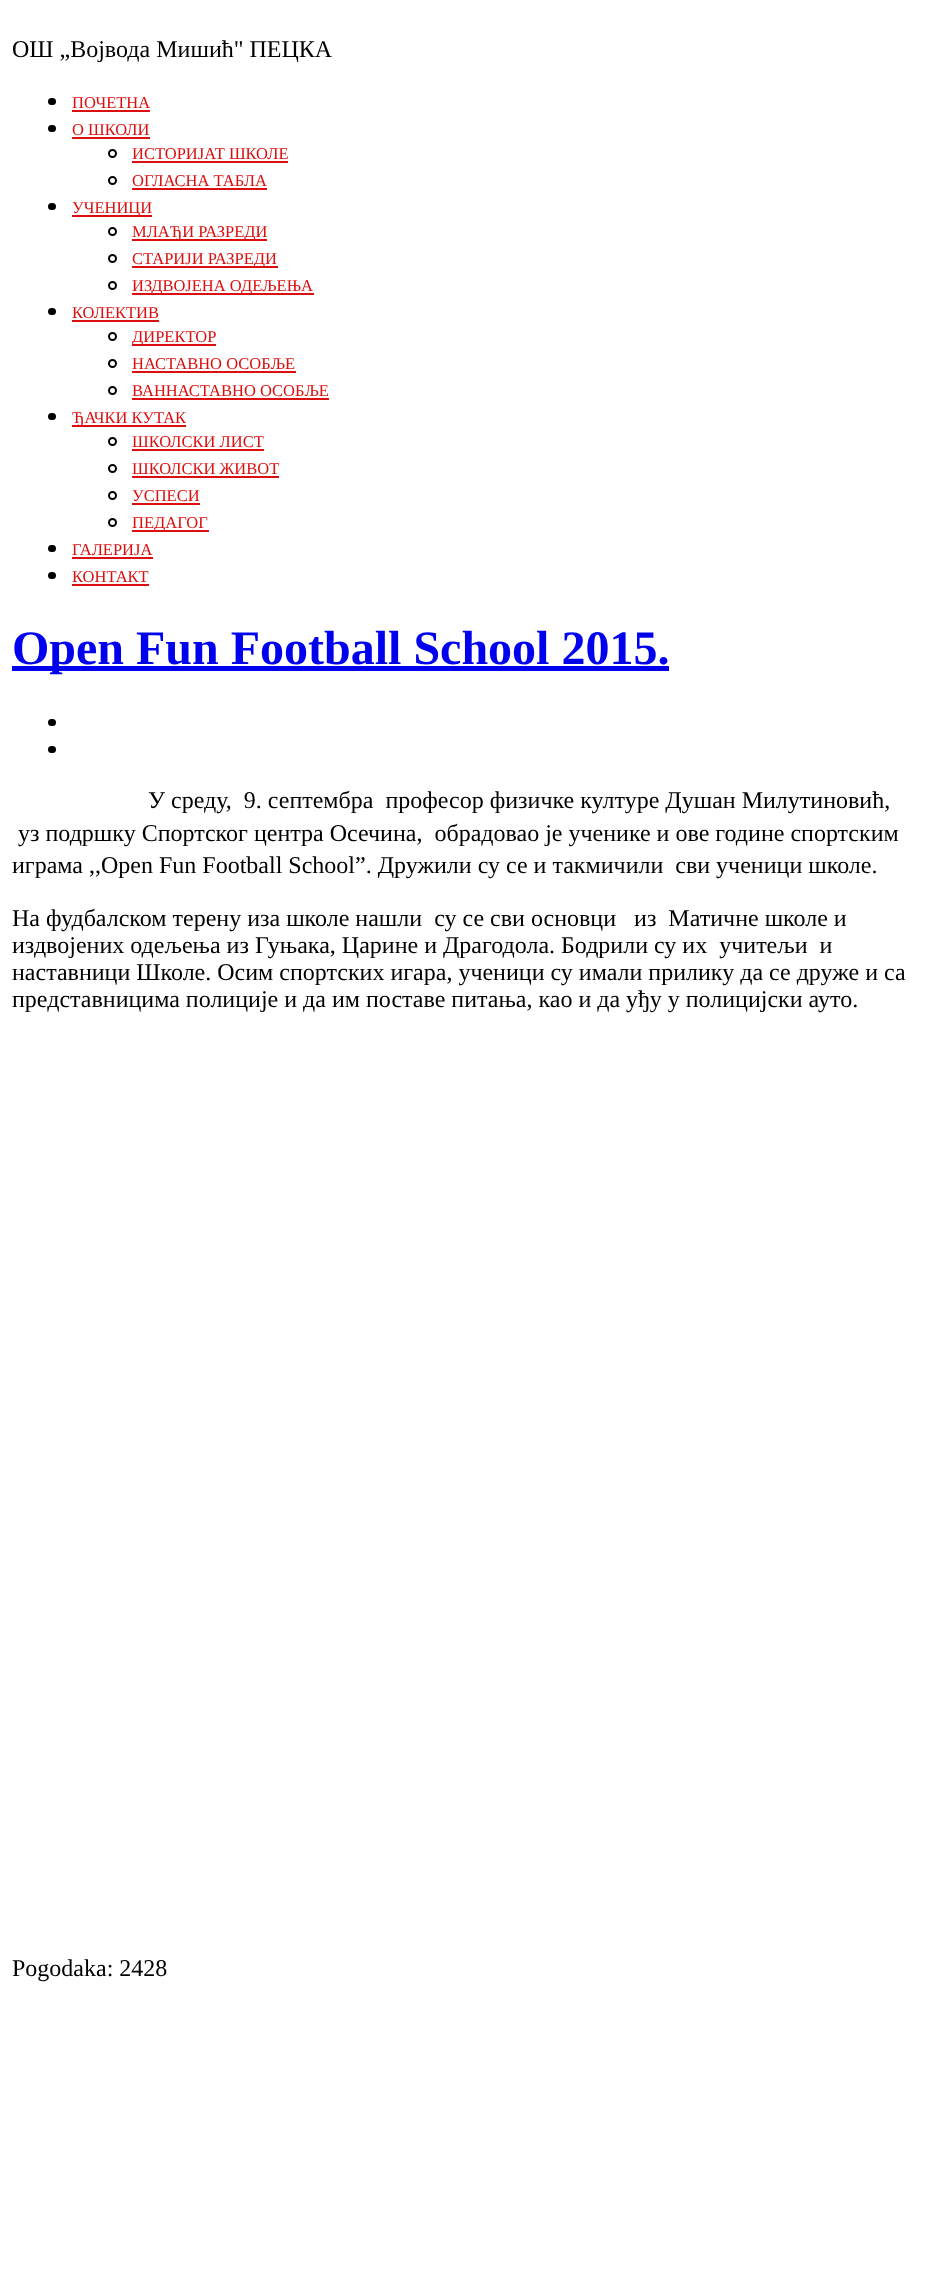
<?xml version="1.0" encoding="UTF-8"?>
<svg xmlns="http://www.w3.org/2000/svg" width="926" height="2270">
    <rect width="100%" height="100%" fill="#FFFFFF"/>
    <text x="12" y="57" font-family="Liberation Serif" font-size="24" fill="#000000">ОШ „Војвода Мишић" ПЕЦКА</text>
    <rect x="48" y="98" width="8" height="7" rx="3.5" fill="#000000"/>
    <text x="72" y="108" font-family="Liberation Serif" font-size="16.5" fill="#DB0F0F">ПОЧЕТНА</text>
    <rect x="72" y="110" width="78" height="2" fill="#DB0F0F"/>
    <rect x="48" y="125" width="8" height="7" rx="3.5" fill="#000000"/>
    <text x="72" y="135" font-family="Liberation Serif" font-size="16.5" fill="#DB0F0F">О ШКОЛИ</text>
    <rect x="72" y="137" width="78" height="2" fill="#DB0F0F"/>
    <circle cx="112.5" cy="153.5" r="3.5" fill="none" stroke="#000000" stroke-width="2"/>
    <text x="132" y="159" font-family="Liberation Serif" font-size="16.5" fill="#DB0F0F">ИСТОРИЈАТ ШКОЛЕ</text>
    <rect x="132" y="161" width="156" height="2" fill="#DB0F0F"/>
    <circle cx="112.5" cy="180.5" r="3.5" fill="none" stroke="#000000" stroke-width="2"/>
    <text x="132" y="186" font-family="Liberation Serif" font-size="16.5" fill="#DB0F0F">ОГЛАСНА ТАБЛА</text>
    <rect x="132" y="188" width="135" height="2" fill="#DB0F0F"/>
    <rect x="48" y="203" width="8" height="7" rx="3.5" fill="#000000"/>
    <rect x="72" y="215" width="80" height="2" fill="#DB0F0F"/>
    <text x="72" y="213" font-family="Liberation Serif" font-size="16.5" fill="#DB0F0F">УЧЕНИЦИ</text>
    <circle cx="112.5" cy="231.5" r="3.5" fill="none" stroke="#000000" stroke-width="2"/>
    <rect x="132" y="239" width="135" height="2" fill="#DB0F0F"/>
    <text x="132" y="237" font-family="Liberation Serif" font-size="16.5" fill="#DB0F0F">МЛАЂИ РАЗРЕДИ</text>
    <circle cx="112.5" cy="258.5" r="3.5" fill="none" stroke="#000000" stroke-width="2"/>
    <rect x="132" y="266" width="146" height="2" fill="#DB0F0F"/>
    <text x="132" y="264" font-family="Liberation Serif" font-size="16.5" fill="#DB0F0F">СТАРИЈИ РАЗРЕДИ</text>
    <circle cx="112.5" cy="285.5" r="3.5" fill="none" stroke="#000000" stroke-width="2"/>
    <rect x="132" y="293" width="182" height="2" fill="#DB0F0F"/>
    <text x="132" y="291" font-family="Liberation Serif" font-size="16.5" fill="#DB0F0F">ИЗДВОЈЕНА ОДЕЉЕЊА</text>
    <rect x="48" y="308" width="8" height="7" rx="3.5" fill="#000000"/>
    <text x="72" y="318" font-family="Liberation Serif" font-size="16.5" fill="#DB0F0F">КОЛЕКТИВ</text>
    <rect x="72" y="320" width="87" height="2" fill="#DB0F0F"/>
    <circle cx="112.5" cy="336.5" r="3.5" fill="none" stroke="#000000" stroke-width="2"/>
    <rect x="132" y="344" width="84" height="2" fill="#DB0F0F"/>
    <text x="132" y="342" font-family="Liberation Serif" font-size="16.5" fill="#DB0F0F">ДИРЕКТОР</text>
    <circle cx="112.5" cy="363.5" r="3.5" fill="none" stroke="#000000" stroke-width="2"/>
    <text x="132" y="369" font-family="Liberation Serif" font-size="16.5" fill="#DB0F0F">НАСТАВНО ОСОБЉЕ</text>
    <rect x="132" y="371" width="164" height="2" fill="#DB0F0F"/>
    <circle cx="112.5" cy="390.5" r="3.5" fill="none" stroke="#000000" stroke-width="2"/>
    <text x="132" y="396" font-family="Liberation Serif" font-size="16.5" fill="#DB0F0F">ВАННАСТАВНО ОСОБЉЕ</text>
    <rect x="132" y="398" width="197" height="2" fill="#DB0F0F"/>
    <rect x="48" y="413" width="8" height="7" rx="3.5" fill="#000000"/>
    <rect x="72" y="425" width="114" height="2" fill="#DB0F0F"/>
    <text x="72" y="423" font-family="Liberation Serif" font-size="16.5" fill="#DB0F0F">ЂАЧКИ КУТАК</text>
    <circle cx="112.5" cy="441.5" r="3.5" fill="none" stroke="#000000" stroke-width="2"/>
    <text x="132" y="447" font-family="Liberation Serif" font-size="16.5" fill="#DB0F0F">ШКОЛСКИ ЛИСТ</text>
    <rect x="132" y="449" width="132" height="2" fill="#DB0F0F"/>
    <circle cx="112.5" cy="468.5" r="3.5" fill="none" stroke="#000000" stroke-width="2"/>
    <text x="132" y="474" font-family="Liberation Serif" font-size="16.5" fill="#DB0F0F">ШКОЛСКИ ЖИВОТ</text>
    <rect x="132" y="476" width="147" height="2" fill="#DB0F0F"/>
    <circle cx="112.5" cy="495.5" r="3.5" fill="none" stroke="#000000" stroke-width="2"/>
    <text x="132" y="501" font-family="Liberation Serif" font-size="16.5" fill="#DB0F0F">УСПЕСИ</text>
    <rect x="132" y="503" width="68" height="2" fill="#DB0F0F"/>
    <circle cx="112.5" cy="522.5" r="3.5" fill="none" stroke="#000000" stroke-width="2"/>
    <rect x="132" y="530" width="77" height="2" fill="#DB0F0F"/>
    <text x="132" y="528" font-family="Liberation Serif" font-size="16.5" fill="#DB0F0F">ПЕДАГОГ</text>
    <rect x="48" y="545" width="8" height="7" rx="3.5" fill="#000000"/>
    <text x="72" y="555" font-family="Liberation Serif" font-size="16.5" fill="#DB0F0F">ГАЛЕРИЈА</text>
    <rect x="72" y="557" width="81" height="2" fill="#DB0F0F"/>
    <rect x="48" y="572" width="8" height="7" rx="3.5" fill="#000000"/>
    <text x="72" y="582" font-family="Liberation Serif" font-size="16.5" fill="#DB0F0F">КОНТАКТ</text>
    <rect x="72" y="584" width="77" height="2" fill="#DB0F0F"/>
    <rect x="12" y="666" width="657" height="5" fill="#0000EE"/>
    <text x="12" y="664" font-family="Liberation Serif" font-size="48" font-weight="700" fill="#0000EE">Open Fun Football School 2015.</text>
    <rect x="48" y="719" width="8" height="7" rx="3.5" fill="#000000"/>
    <rect x="48" y="746" width="8" height="7" rx="3.5" fill="#000000"/>
    <text x="148" y="808" font-family="Liberation Serif" font-size="24" fill="#000000" xml:space="preserve">У среду,  9. септембра  професор физичке културе Душан Милутиновић,</text>
    <text x="18" y="841" font-family="Liberation Serif" font-size="24" fill="#000000" xml:space="preserve">уз подршку Спортског центра Осечина,  обрадовао је ученике и ове године спортским</text>
    <text x="12" y="873" font-family="Liberation Serif" font-size="24" fill="#000000" xml:space="preserve">играма ,,Open Fun Football School”. Дружили су се и такмичили  сви ученици школе.</text>
    <text font-family="Liberation Serif" font-size="24" fill="#000000" xml:space="preserve"><tspan x="12" y="926">На фудбалском терену иза школе нашли  су се сви основци   из  Матичне школе и</tspan><tspan x="12" y="953">издвојених одељења из Гуњака, Царине и Драгодола. Бодрили су их  учитељи  и</tspan><tspan x="12" y="980">наставници Школе. Осим спортских игара, ученици су имали прилику да се друже и са</tspan><tspan x="12" y="1007">представницима полиције и да им поставе питања, као и да уђу у полицијски ауто.</tspan></text>
    <text x="12" y="1976" font-family="Liberation Serif" font-size="24" fill="#000000">Pogodaka: 2428</text>
</svg>
